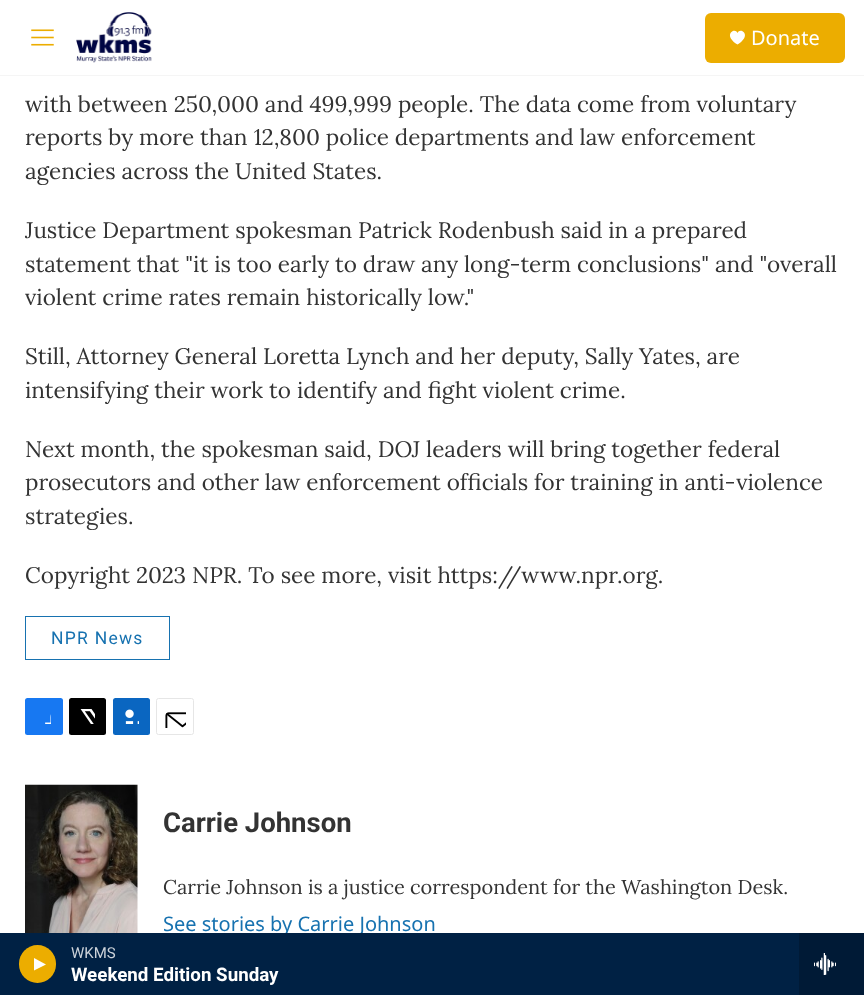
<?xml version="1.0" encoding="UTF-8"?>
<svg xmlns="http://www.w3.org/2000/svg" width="864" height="995">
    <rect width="100%" height="100%" fill="#FFFFFF"/>
    <rect x="0" y="75" width="864" height="1" fill="#F5F5F5"/>
    <image x="31" y="29" width="23" height="17" href="img_01.png"/>
    <image x="76" y="12" width="76" height="51" href="img_02.png"/>
    <rect x="705" y="13" width="140" height="50" rx="6" fill="#ECAD00"/>
    <path d="M 737.5 33 C 735 26.5 722 35 737.5 44.5 C 753 35 740 26.5 737.5 33 Z" fill="#FFFFFF"/>
    <text x="751" y="45" font-family="Noto Sans" font-size="20" fill="#FFFFFF">Donate</text>
    <text x="163" y="931" font-family="Noto Sans" font-size="20" fill="#1772B0">See stories by Carrie Johnson</text>
    <rect x="0" y="933" width="799" height="62" fill="#002144"/>
    <rect x="19" y="945" width="37" height="38" rx="18.5" fill="#ECAD00"/>
    <path d="M 34 958 L 46 964.5 L 34 970.5 Z" fill="#FFFFFF"/>
    <text x="71" y="958" font-family="Roboto" font-size="15" fill="#CCD3DA">WKMS</text>
    <text x="71" y="981" font-family="'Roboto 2'" font-size="18.75" font-weight="700" fill="#FFFFFF">Weekend Edition Sunday</text>
    <rect x="799" y="933" width="65" height="62" fill="#001A36"/>
    <image x="814" y="953" width="22" height="22" href="img_03.png"/>
    <text font-family="Lora" font-size="22.5" fill="#333333">
        <tspan x="25" y="112">with between 250,000 and 499,999 people. The data come from voluntary</tspan>
        <tspan x="25" y="145">reports by more than 12,800 police departments and law enforcement</tspan>
        <tspan x="25" y="179">agencies across the United States.</tspan>
    </text>
    <text font-family="Lora" font-size="22.5" fill="#333333">
        <tspan x="25" y="238">Justice Department spokesman Patrick Rodenbush said in a prepared</tspan>
        <tspan x="25" y="272">statement that "it is too early to draw any long-term conclusions" and "overall</tspan>
        <tspan x="25" y="305">violent crime rates remain historically low."</tspan>
    </text>
    <text font-family="Lora" font-size="22.5" fill="#333333">
        <tspan x="25" y="364">Still, Attorney General Loretta Lynch and her deputy, Sally Yates, are</tspan>
        <tspan x="25" y="398">intensifying their work to identify and fight violent crime.</tspan>
    </text>
    <text font-family="Lora" font-size="22.5" fill="#333333">
        <tspan x="25" y="457">Next month, the spokesman said, DOJ leaders will bring together federal</tspan>
        <tspan x="25" y="490">prosecutors and other law enforcement officials for training in anti-violence</tspan>
        <tspan x="25" y="524">strategies.</tspan>
    </text>
    <text x="25" y="583" font-family="Lora" font-size="22.5" fill="#333333">Copyright 2023 NPR. To see more, visit https://www.npr.org.</text>
    <rect x="25.5" y="616.5" width="144" height="43" fill="none" stroke="#1772B0"/>
    <text x="51" y="644" font-family="Roboto" font-size="17.5" letter-spacing="1.25" fill="#1772B0">NPR News</text>
    <rect x="25" y="698" width="38" height="37" rx="2.5" fill="#1778F2"/>
    <image x="45" y="714" width="6" height="10" href="img_04.png"/>
    <rect x="69" y="698" width="37" height="37" rx="2.5" fill="#000000"/>
    <image x="80" y="709" width="15" height="15" href="img_05.png"/>
    <rect x="113" y="698" width="37" height="37" rx="2.5" fill="#0A66C1"/>
    <image x="125" y="709" width="14" height="15" href="img_06.png"/>
    <rect x="156.5" y="698.5" width="37" height="36" rx="2" fill="none" stroke="#E6E6E6"/>
    <image x="165" y="712" width="21" height="16" href="img_07.png"/>
    <image x="25" y="784" width="113" height="149" href="img_08.png"/>
    <text x="163" y="832" font-family="Roboto" font-size="27.5" font-weight="700" fill="#333333">Carrie Johnson</text>
    <text x="163" y="894" font-family="Lora" font-size="20" fill="#333333">Carrie Johnson is a justice correspondent for the Washington Desk.</text>
</svg>
